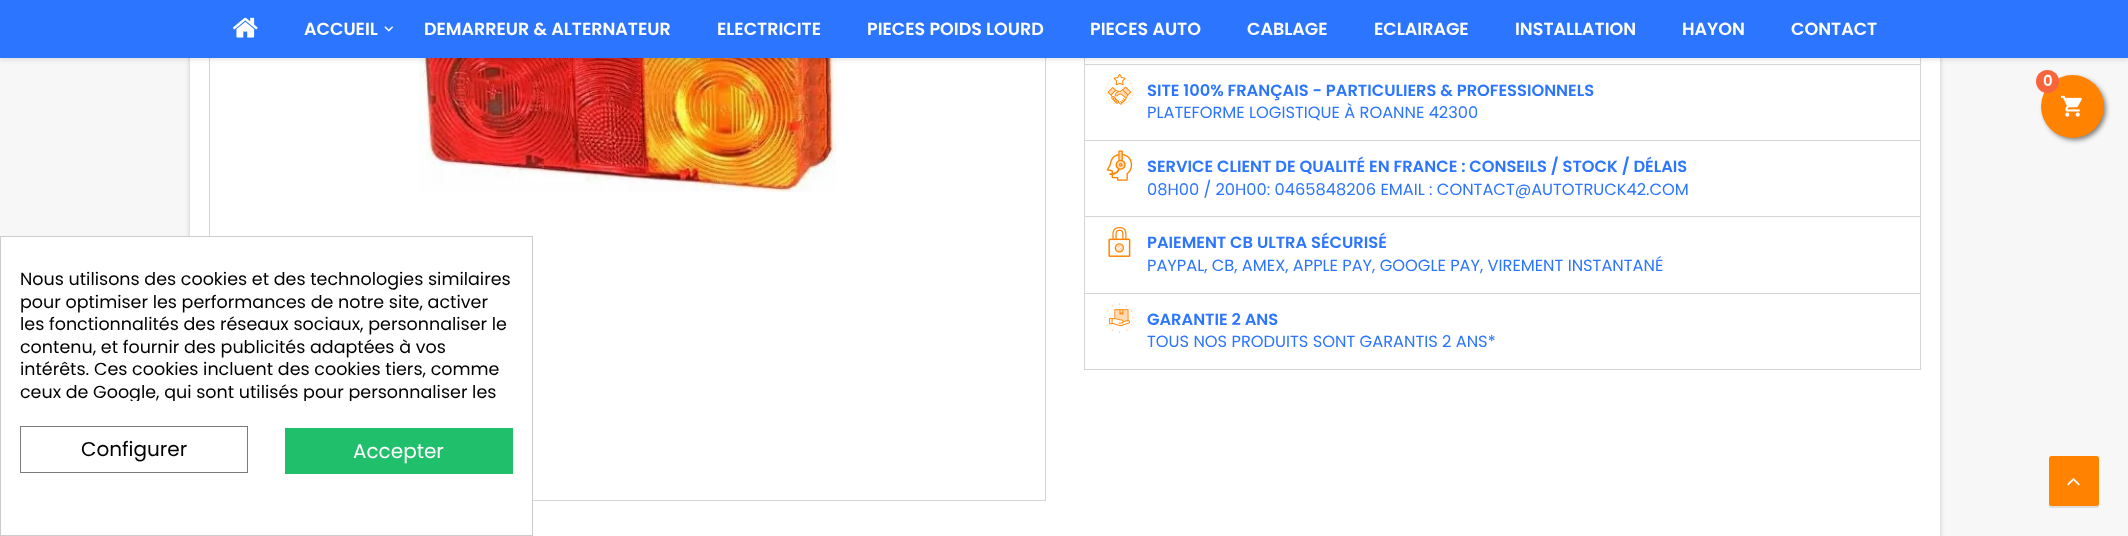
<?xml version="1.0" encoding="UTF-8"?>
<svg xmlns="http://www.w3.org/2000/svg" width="2128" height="536">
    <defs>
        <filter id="blur1" x="-50%" y="-200%" width="200%" height="500%"><feGaussianBlur stdDeviation="2.5"/></filter>
        <filter id="blur2" x="-50%" y="-200%" width="200%" height="500%"><feGaussianBlur stdDeviation="0.5"/></filter>
        <clipPath id="clip1"><rect x="20" y="268" width="493" height="133"/></clipPath>
    </defs>
    <rect width="100%" height="100%" fill="#F7F7F7"/>
    <rect x="190" y="-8" width="1750" height="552" fill="#000000" fill-opacity="0.2" filter="url(#blur1)"/>
    <rect x="190" y="58" width="1750" height="478" fill="#FFFFFF"/>
    <rect x="209.5" y="-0.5" width="836" height="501" fill="none" stroke="#D6D4D4"/>
    <image x="419" y="58" width="418" height="134" href="img_04.png"/>
    <rect x="1084.5" y="-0.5" width="836" height="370" fill="none" stroke="#D6D4D4"/>
    <rect x="1085" y="64" width="835" height="1" fill="#D6D4D4"/>
    <rect x="0" y="3" width="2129" height="57" fill="#000000" fill-opacity="0.1" filter="url(#blur1)"/>
    <rect x="0" y="0" width="2128" height="58" fill="#2C75FF"/>
    <image x="232" y="17" width="26" height="21" href="img_01.png"/>
    <text x="304" y="35" font-family="Poppins" font-size="17.5" font-weight="600" fill="#FFFFFF">ACCUEIL</text>
    <image x="384" y="26" width="9" height="6" href="img_02.png"/>
    <text x="424" y="35" font-family="Poppins" font-size="17.5" font-weight="600" fill="#FFFFFF">DEMARREUR &amp; ALTERNATEUR</text>
    <text x="717" y="35" font-family="Poppins" font-size="17.5" font-weight="600" fill="#FFFFFF">ELECTRICITE</text>
    <text x="867" y="35" font-family="Poppins" font-size="17.5" font-weight="600" fill="#FFFFFF">PIECES POIDS LOURD</text>
    <text x="1090" y="35" font-family="Poppins" font-size="17.5" font-weight="600" fill="#FFFFFF">PIECES AUTO</text>
    <text x="1247" y="35" font-family="Poppins" font-size="17.5" font-weight="600" fill="#FFFFFF">CABLAGE</text>
    <text x="1374" y="35" font-family="Poppins" font-size="17.5" font-weight="600" fill="#FFFFFF">ECLAIRAGE</text>
    <text x="1515" y="35" font-family="Poppins" font-size="17.5" font-weight="600" fill="#FFFFFF">INSTALLATION</text>
    <text x="1682" y="35" font-family="Poppins" font-size="17.5" font-weight="600" fill="#FFFFFF">HAYON</text>
    <text x="1791" y="35" font-family="Poppins" font-size="17.5" font-weight="600" fill="#FFFFFF">CONTACT</text>
    <rect x="2044" y="78" width="62" height="62" rx="31" fill="#000000" fill-opacity="0.5" filter="url(#blur1)"/>
    <circle cx="2072.5" cy="106.5" r="31.5" fill="#FF8300"/>
    <circle cx="2047.5" cy="81.5" r="11.5" fill="#F8653D"/>
    <text x="2043" y="86" font-family="Poppins" font-size="15" font-weight="600" fill="#FFFFFF">0</text>
    <image x="2061" y="95" width="21" height="22" href="img_03.png"/>
    <rect x="1085" y="140" width="835" height="1" fill="#D6D4D4"/>
    <image x="1105" y="74" width="29" height="31" href="img_05.png"/>
    <text x="1147" y="96" font-family="Poppins" font-size="16.25" font-weight="600" fill="#2C75FF">SITE 100% FRANÇAIS - PARTICULIERS &amp; PROFESSIONNELS</text>
    <text x="1147" y="118" font-family="Poppins" font-size="16.25" fill="#2C75FF">PLATEFORME LOGISTIQUE À ROANNE 42300</text>
    <rect x="1085" y="216" width="835" height="1" fill="#D6D4D4"/>
    <image x="1106" y="150" width="27" height="31" href="img_06.png"/>
    <text x="1147" y="172" font-family="Poppins" font-size="16.25" font-weight="600" fill="#2C75FF">SERVICE CLIENT DE QUALITÉ EN FRANCE : CONSEILS / STOCK / DÉLAIS</text>
    <text x="1147" y="195" font-family="Poppins" font-size="16.25" fill="#2C75FF">08H00 / 20H00: 0465848206 EMAIL : CONTACT@AUTOTRUCK42.COM</text>
    <rect x="1085" y="293" width="835" height="1" fill="#D6D4D4"/>
    <image x="1108" y="227" width="23" height="30" href="img_07.png"/>
    <text x="1147" y="248" font-family="Poppins" font-size="16.25" font-weight="600" fill="#2C75FF">PAIEMENT CB ULTRA SÉCURISÉ</text>
    <text x="1147" y="271" font-family="Poppins" font-size="16.25" fill="#2C75FF">PAYPAL, CB, AMEX, APPLE PAY, GOOGLE PAY, VIREMENT INSTANTANÉ</text>
    <image x="1104" y="303" width="31" height="31" href="img_08.png"/>
    <text x="1147" y="325" font-family="Poppins" font-size="16.25" font-weight="600" fill="#2C75FF">GARANTIE 2 ANS</text>
    <text x="1147" y="347" font-family="Poppins" font-size="16.25" fill="#2C75FF">TOUS NOS PRODUITS SONT GARANTIS 2 ANS*</text>
    <rect x="2049" y="458" width="50" height="50" rx="2.5" fill="#000000" fill-opacity="0.1" filter="url(#blur2)"/>
    <rect x="2049" y="456" width="50" height="50" rx="2.5" fill="#FF8300"/>
    <image x="2067" y="478" width="13" height="8" href="img_09.png"/>
    <rect x="0.5" y="236.5" width="532" height="299" fill="#FFFFFF" stroke="#CCCCCC"/>
    <text font-family="Poppins" font-size="17.5" fill="#000000">
        <tspan x="20" y="285">Nous utilisons des cookies et des technologies similaires</tspan>
        <tspan x="20" y="308">pour optimiser les performances de notre site, activer</tspan>
        <tspan x="20" y="330">les fonctionnalités des réseaux sociaux, personnaliser le</tspan>
        <tspan x="20" y="353">contenu, et fournir des publicités adaptées à vos</tspan>
        <tspan x="20" y="375">intérêts. Ces cookies incluent des cookies tiers, comme</tspan>
    </text>
    <g clip-path="url(#clip1)">
        <text x="20" y="398" font-family="Poppins" font-size="17.5" fill="#000000">ceux de Google, qui sont utilisés pour personnaliser les</text>
    </g>
    <rect x="20.5" y="426.5" width="227" height="46" fill="none" stroke="#7A7A7A"/>
    <text x="81" y="456" font-family="Poppins" font-size="20" fill="#000000">Configurer</text>
    <rect x="285" y="428" width="228" height="46" fill="#20BF6B"/>
    <text x="353" y="458" font-family="Poppins" font-size="20" fill="#FFFFFF">Accepter</text>
</svg>
